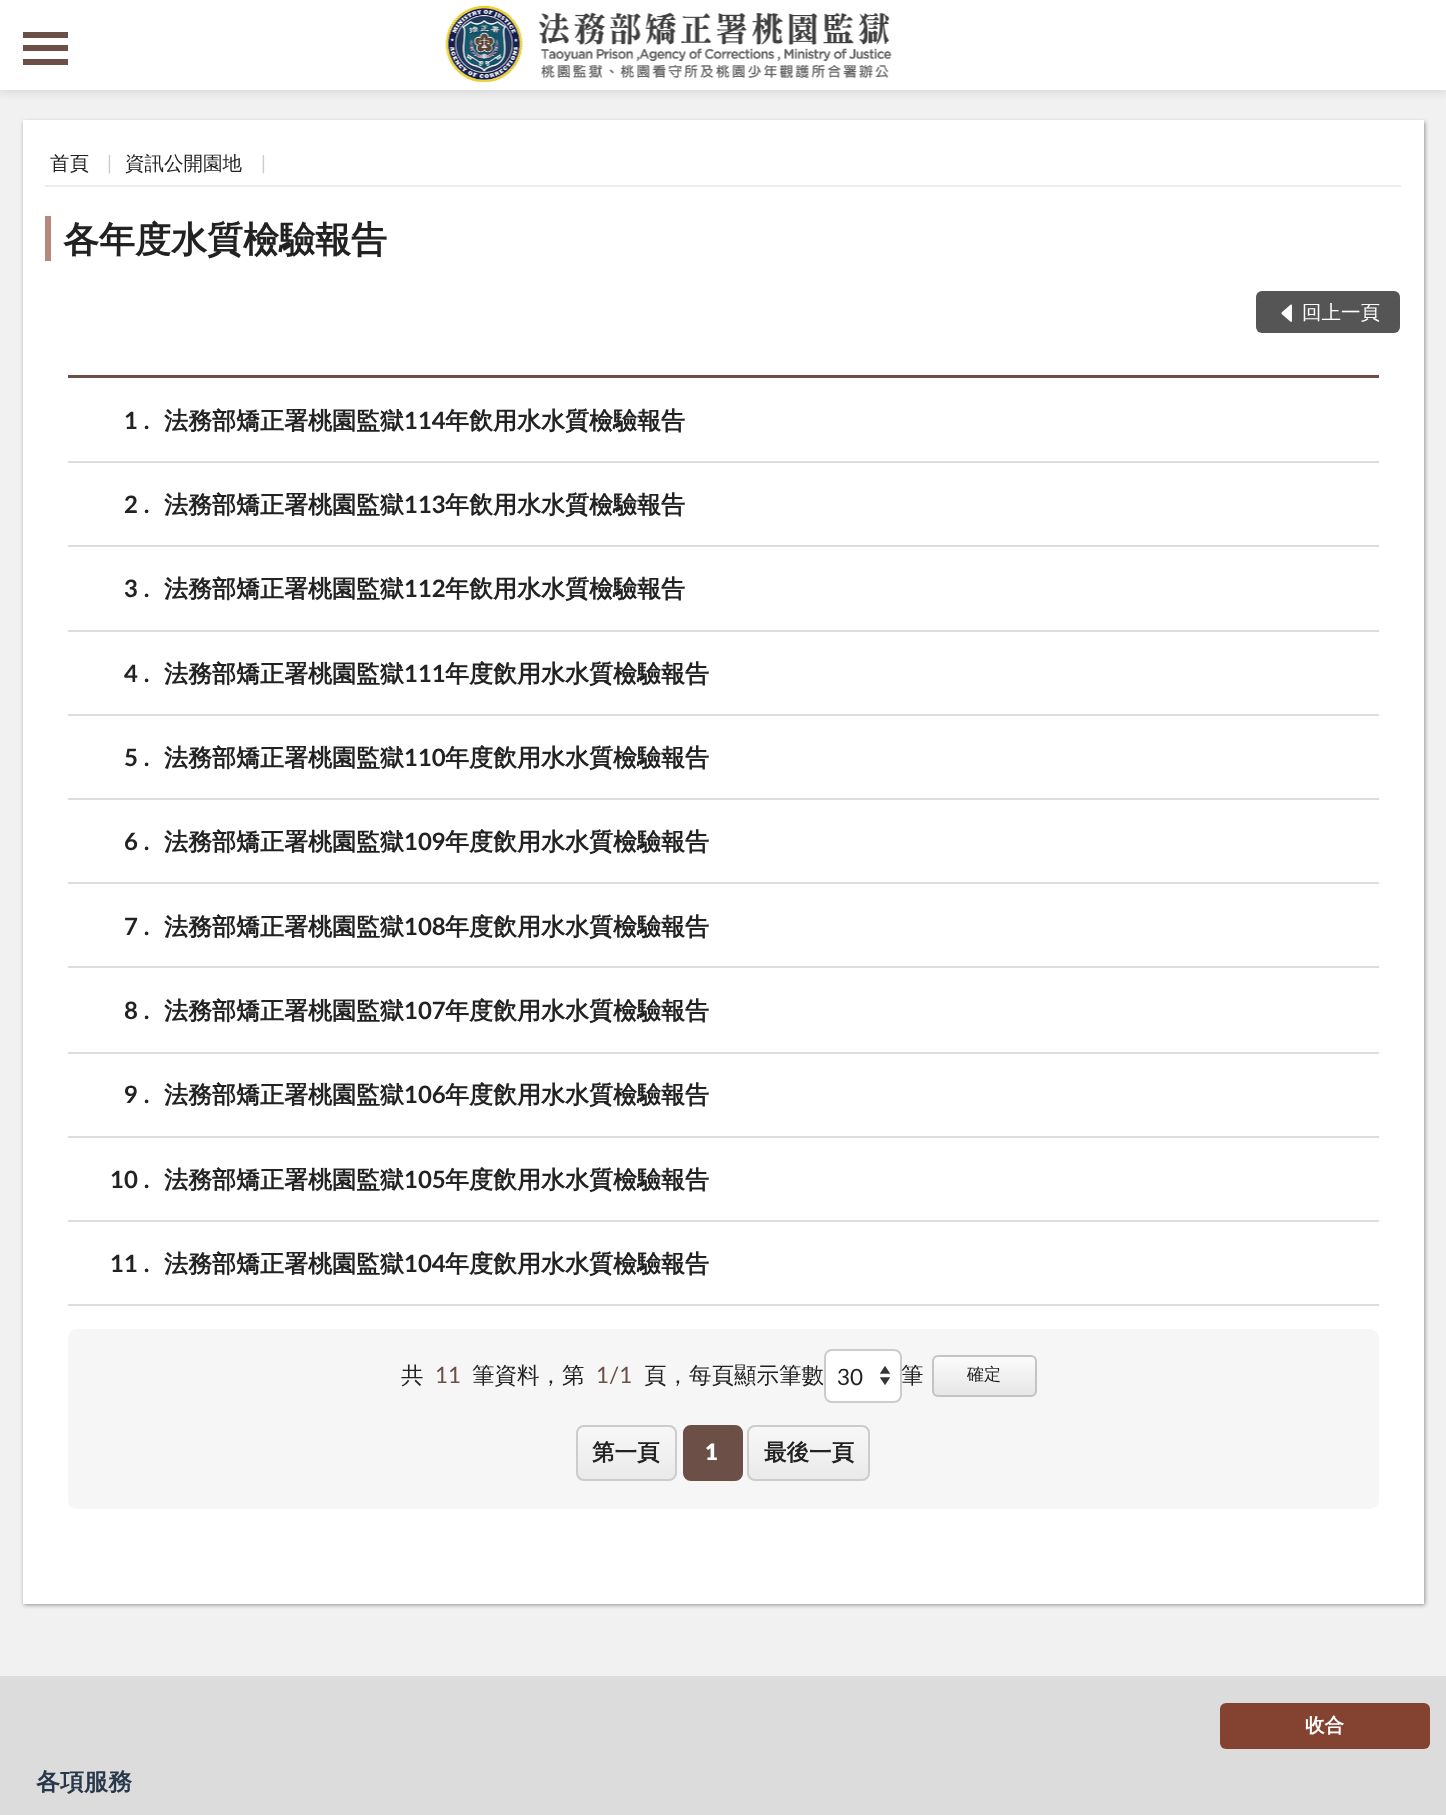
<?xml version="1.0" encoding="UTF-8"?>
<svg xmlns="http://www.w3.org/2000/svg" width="1446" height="1815">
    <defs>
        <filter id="blur1" x="-50%" y="-200%" width="200%" height="500%"><feGaussianBlur stdDeviation="4"/></filter>
        <filter id="blur2" x="-50%" y="-200%" width="200%" height="500%"><feGaussianBlur stdDeviation="2"/></filter>
        <clipPath id="clip1"><rect x="932" y="1355" width="105" height="42" rx="6"/></clipPath>
        <linearGradient id="g1" gradientUnits="userSpaceOnUse" x1="984" y1="1356" x2="984" y2="1395"><stop offset="0" stop-color="#FCFCFC"/><stop offset="1" stop-color="#E6E6E6"/></linearGradient>
        <clipPath id="clip2"><rect x="576" y="1425" width="101" height="56" rx="8"/></clipPath>
        <linearGradient id="g2" gradientUnits="userSpaceOnUse" x1="626" y1="1427" x2="626" y2="1479"><stop offset="0" stop-color="#F7F7F7"/><stop offset="1" stop-color="#EAEAEA"/></linearGradient>
        <clipPath id="clip3"><rect x="747" y="1425" width="123" height="56" rx="8"/></clipPath>
        <linearGradient id="g3" gradientUnits="userSpaceOnUse" x1="809" y1="1427" x2="809" y2="1479"><stop offset="0" stop-color="#F7F7F7"/><stop offset="1" stop-color="#EAEAEA"/></linearGradient>
    </defs>
    <rect width="100%" height="100%" fill="#F1F1F1"/>
    <rect x="0" y="3" width="1446" height="90" fill="#000000" fill-opacity="0.1" filter="url(#blur1)"/>
    <rect x="0" y="0" width="1446" height="90" fill="#FFFFFF"/>
    <rect x="23" y="32" width="45" height="6" fill="#6C5048"/>
    <rect x="23" y="45" width="45" height="6" fill="#6C5048"/>
    <rect x="23" y="59" width="45" height="6" fill="#6C5048"/>
    <image x="445" y="5" width="447" height="77" href="img_01.png"/>
    <rect x="24" y="122" width="1401" height="1483" fill="#000000" fill-opacity="0.4" filter="url(#blur2)"/>
    <rect x="23" y="120" width="1401" height="1484" fill="#FFFFFF"/>
    <rect x="45" y="185" width="1356" height="2" fill="#EEEEEE"/>
    <text x="50" y="170" font-family="WenQuanYi Zen Hei" font-size="19.5" font-weight="500" fill="#222222">首頁</text>
    <text x="107" y="170" font-family="Lato" font-size="19.5" fill="#CCCCCC">|</text>
    <text x="125" y="170" font-family="WenQuanYi Zen Hei" font-size="19.5" font-weight="500" fill="#222222">資訊公開園地</text>
    <text x="261" y="170" font-family="Lato" font-size="19.5" fill="#CCCCCC">|</text>
    <rect x="45" y="216" width="6" height="45" fill="#B8887B"/>
    <text x="63" y="252" font-family="WenQuanYi Zen Hei" font-size="36" font-weight="700" fill="#222222">各年度水質檢驗報告</text>
    <rect x="1256" y="291" width="144" height="42" rx="6" fill="#555555"/>
    <image x="1281" y="304" width="11" height="18" href="img_02.png"/>
    <text x="1302" y="319" font-family="WenQuanYi Zen Hei" font-size="19.5" font-weight="500" fill="#FFFFFF">回上一頁</text>
    <rect x="68" y="375" width="1311" height="3" fill="#6C5048"/>
    <rect x="68" y="461" width="1311" height="2" fill="#DDDDDD"/>
    <text x="124" y="429" font-family="Lato" font-size="24" font-weight="700" fill="#222222">1 .</text>
    <text x="164" y="429" font-family="WenQuanYi Zen Hei" font-size="24" font-weight="700" fill="#222222">法務部矯正署桃園監獄</text>
    <text x="404" y="429" font-family="Lato" font-size="24" font-weight="700" fill="#222222">114</text>
    <text x="445" y="429" font-family="WenQuanYi Zen Hei" font-size="24" font-weight="700" fill="#222222">年飲用水水質檢驗報告</text>
    <rect x="68" y="545" width="1311" height="2" fill="#DDDDDD"/>
    <text x="124" y="513" font-family="Lato" font-size="24" font-weight="700" fill="#222222">2 .</text>
    <text x="164" y="513" font-family="WenQuanYi Zen Hei" font-size="24" font-weight="700" fill="#222222">法務部矯正署桃園監獄</text>
    <text x="404" y="513" font-family="Lato" font-size="24" font-weight="700" fill="#222222">113</text>
    <text x="445" y="513" font-family="WenQuanYi Zen Hei" font-size="24" font-weight="700" fill="#222222">年飲用水水質檢驗報告</text>
    <rect x="68" y="630" width="1311" height="2" fill="#DDDDDD"/>
    <text x="124" y="597" font-family="Lato" font-size="24" font-weight="700" fill="#222222">3 .</text>
    <text x="164" y="597" font-family="WenQuanYi Zen Hei" font-size="24" font-weight="700" fill="#222222">法務部矯正署桃園監獄</text>
    <text x="404" y="597" font-family="Lato" font-size="24" font-weight="700" fill="#222222">112</text>
    <text x="445" y="597" font-family="WenQuanYi Zen Hei" font-size="24" font-weight="700" fill="#222222">年飲用水水質檢驗報告</text>
    <rect x="68" y="714" width="1311" height="2" fill="#DDDDDD"/>
    <text x="124" y="682" font-family="Lato" font-size="24" font-weight="700" fill="#222222">4 .</text>
    <text x="164" y="682" font-family="WenQuanYi Zen Hei" font-size="24" font-weight="700" fill="#222222">法務部矯正署桃園監獄</text>
    <text x="404" y="682" font-family="Lato" font-size="24" font-weight="700" fill="#222222">111</text>
    <text x="445" y="682" font-family="WenQuanYi Zen Hei" font-size="24" font-weight="700" fill="#222222">年度飲用水水質檢驗報告</text>
    <rect x="68" y="798" width="1311" height="2" fill="#DDDDDD"/>
    <text x="124" y="766" font-family="Lato" font-size="24" font-weight="700" fill="#222222">5 .</text>
    <text x="164" y="766" font-family="WenQuanYi Zen Hei" font-size="24" font-weight="700" fill="#222222">法務部矯正署桃園監獄</text>
    <text x="404" y="766" font-family="Lato" font-size="24" font-weight="700" fill="#222222">110</text>
    <text x="445" y="766" font-family="WenQuanYi Zen Hei" font-size="24" font-weight="700" fill="#222222">年度飲用水水質檢驗報告</text>
    <rect x="68" y="882" width="1311" height="2" fill="#DDDDDD"/>
    <text x="124" y="850" font-family="Lato" font-size="24" font-weight="700" fill="#222222">6 .</text>
    <text x="164" y="850" font-family="WenQuanYi Zen Hei" font-size="24" font-weight="700" fill="#222222">法務部矯正署桃園監獄</text>
    <text x="404" y="850" font-family="Lato" font-size="24" font-weight="700" fill="#222222">109</text>
    <text x="445" y="850" font-family="WenQuanYi Zen Hei" font-size="24" font-weight="700" fill="#222222">年度飲用水水質檢驗報告</text>
    <rect x="68" y="966" width="1311" height="2" fill="#DDDDDD"/>
    <text x="124" y="935" font-family="Lato" font-size="24" font-weight="700" fill="#222222">7 .</text>
    <text x="164" y="935" font-family="WenQuanYi Zen Hei" font-size="24" font-weight="700" fill="#222222">法務部矯正署桃園監獄</text>
    <text x="404" y="935" font-family="Lato" font-size="24" font-weight="700" fill="#222222">108</text>
    <text x="445" y="935" font-family="WenQuanYi Zen Hei" font-size="24" font-weight="700" fill="#222222">年度飲用水水質檢驗報告</text>
    <rect x="68" y="1052" width="1311" height="2" fill="#DDDDDD"/>
    <text x="124" y="1019" font-family="Lato" font-size="24" font-weight="700" fill="#222222">8 .</text>
    <text x="164" y="1019" font-family="WenQuanYi Zen Hei" font-size="24" font-weight="700" fill="#222222">法務部矯正署桃園監獄</text>
    <text x="404" y="1019" font-family="Lato" font-size="24" font-weight="700" fill="#222222">107</text>
    <text x="445" y="1019" font-family="WenQuanYi Zen Hei" font-size="24" font-weight="700" fill="#222222">年度飲用水水質檢驗報告</text>
    <rect x="68" y="1136" width="1311" height="2" fill="#DDDDDD"/>
    <text x="124" y="1103" font-family="Lato" font-size="24" font-weight="700" fill="#222222">9 .</text>
    <text x="164" y="1103" font-family="WenQuanYi Zen Hei" font-size="24" font-weight="700" fill="#222222">法務部矯正署桃園監獄</text>
    <text x="404" y="1103" font-family="Lato" font-size="24" font-weight="700" fill="#222222">106</text>
    <text x="445" y="1103" font-family="WenQuanYi Zen Hei" font-size="24" font-weight="700" fill="#222222">年度飲用水水質檢驗報告</text>
    <rect x="68" y="1220" width="1311" height="2" fill="#DDDDDD"/>
    <text x="110" y="1188" font-family="Lato" font-size="24" font-weight="700" fill="#222222">10 .</text>
    <text x="164" y="1188" font-family="WenQuanYi Zen Hei" font-size="24" font-weight="700" fill="#222222">法務部矯正署桃園監獄</text>
    <text x="404" y="1188" font-family="Lato" font-size="24" font-weight="700" fill="#222222">105</text>
    <text x="445" y="1188" font-family="WenQuanYi Zen Hei" font-size="24" font-weight="700" fill="#222222">年度飲用水水質檢驗報告</text>
    <rect x="68" y="1304" width="1311" height="2" fill="#DDDDDD"/>
    <text x="110" y="1272" font-family="Lato" font-size="24" font-weight="700" fill="#222222">11 .</text>
    <text x="164" y="1272" font-family="WenQuanYi Zen Hei" font-size="24" font-weight="700" fill="#222222">法務部矯正署桃園監獄</text>
    <text x="404" y="1272" font-family="Lato" font-size="24" font-weight="700" fill="#222222">104</text>
    <text x="445" y="1272" font-family="WenQuanYi Zen Hei" font-size="24" font-weight="700" fill="#222222">年度飲用水水質檢驗報告</text>
    <rect x="68" y="1329" width="1311" height="180" rx="9" fill="#F6F6F6"/>
    <text x="401" y="1383" font-family="WenQuanYi Zen Hei" font-size="22.5" font-weight="500" fill="#222222">共</text>
    <text x="435" y="1383" font-family="Lato" font-size="22.5" fill="#6C5048">11</text>
    <text x="472" y="1383" font-family="WenQuanYi Zen Hei" font-size="22.5" font-weight="500" fill="#222222">筆資料，第</text>
    <text x="596" y="1383" font-family="Lato" font-size="22.5" fill="#6C5048">1/1</text>
    <text x="644" y="1383" font-family="WenQuanYi Zen Hei" font-size="22.5" font-weight="500" fill="#222222">頁，每頁顯示筆數</text>
    <rect x="824" y="1349" width="78" height="54" rx="8" fill="#FFFFFF"/>
    <image x="879" y="1366" width="12" height="19" href="img_03.png"/>
    <rect x="825" y="1350" width="76" height="52" rx="7" fill="none" stroke="#CCCCCC" stroke-width="2"/>
    <text x="837" y="1385" font-family="Lato" font-size="22.5" fill="#222222">30</text>
    <text x="901" y="1383" font-family="WenQuanYi Zen Hei" font-size="22.5" font-weight="500" fill="#222222">筆</text>
    <g clip-path="url(#clip1)">
        <rect x="932" y="1356" width="105" height="39" fill="url(#g1)"/>
    </g>
    <rect x="933" y="1356" width="103" height="40" rx="5" fill="none" stroke="#C4C4C4" stroke-width="2"/>
    <text x="967" y="1380" font-family="WenQuanYi Zen Hei" font-size="17" font-weight="500" fill="#222222">確定</text>
    <g clip-path="url(#clip2)">
        <rect x="576" y="1427" width="101" height="52" fill="url(#g2)"/>
    </g>
    <rect x="577" y="1426" width="99" height="54" rx="7" fill="none" stroke="#CCCCCC" stroke-width="2"/>
    <text x="592" y="1460" font-family="WenQuanYi Zen Hei" font-size="22.5" font-weight="700" fill="#222222">第一頁</text>
    <rect x="684" y="1426" width="58" height="54" rx="7" fill="#6C5048" stroke="#6C5048" stroke-width="2"/>
    <text x="705" y="1460" font-family="Lato" font-size="22.5" font-weight="800" fill="#FFFFFF">1</text>
    <g clip-path="url(#clip3)">
        <rect x="747" y="1427" width="123" height="52" fill="url(#g3)"/>
    </g>
    <rect x="748" y="1426" width="121" height="54" rx="7" fill="none" stroke="#CCCCCC" stroke-width="2"/>
    <text x="764" y="1460" font-family="WenQuanYi Zen Hei" font-size="22.5" font-weight="700" fill="#222222">最後一頁</text>
    <rect x="0" y="1676" width="1446" height="139" fill="#DCDCDC"/>
    <rect x="1220" y="1703" width="210" height="46" rx="6" fill="#844331"/>
    <text x="1305" y="1732" font-family="WenQuanYi Zen Hei" font-size="19.5" font-weight="700" fill="#FFFFFF">收合</text>
    <text x="36" y="1790" font-family="WenQuanYi Zen Hei" font-size="24" font-weight="700" fill="#28374A">各項服務</text>
</svg>
